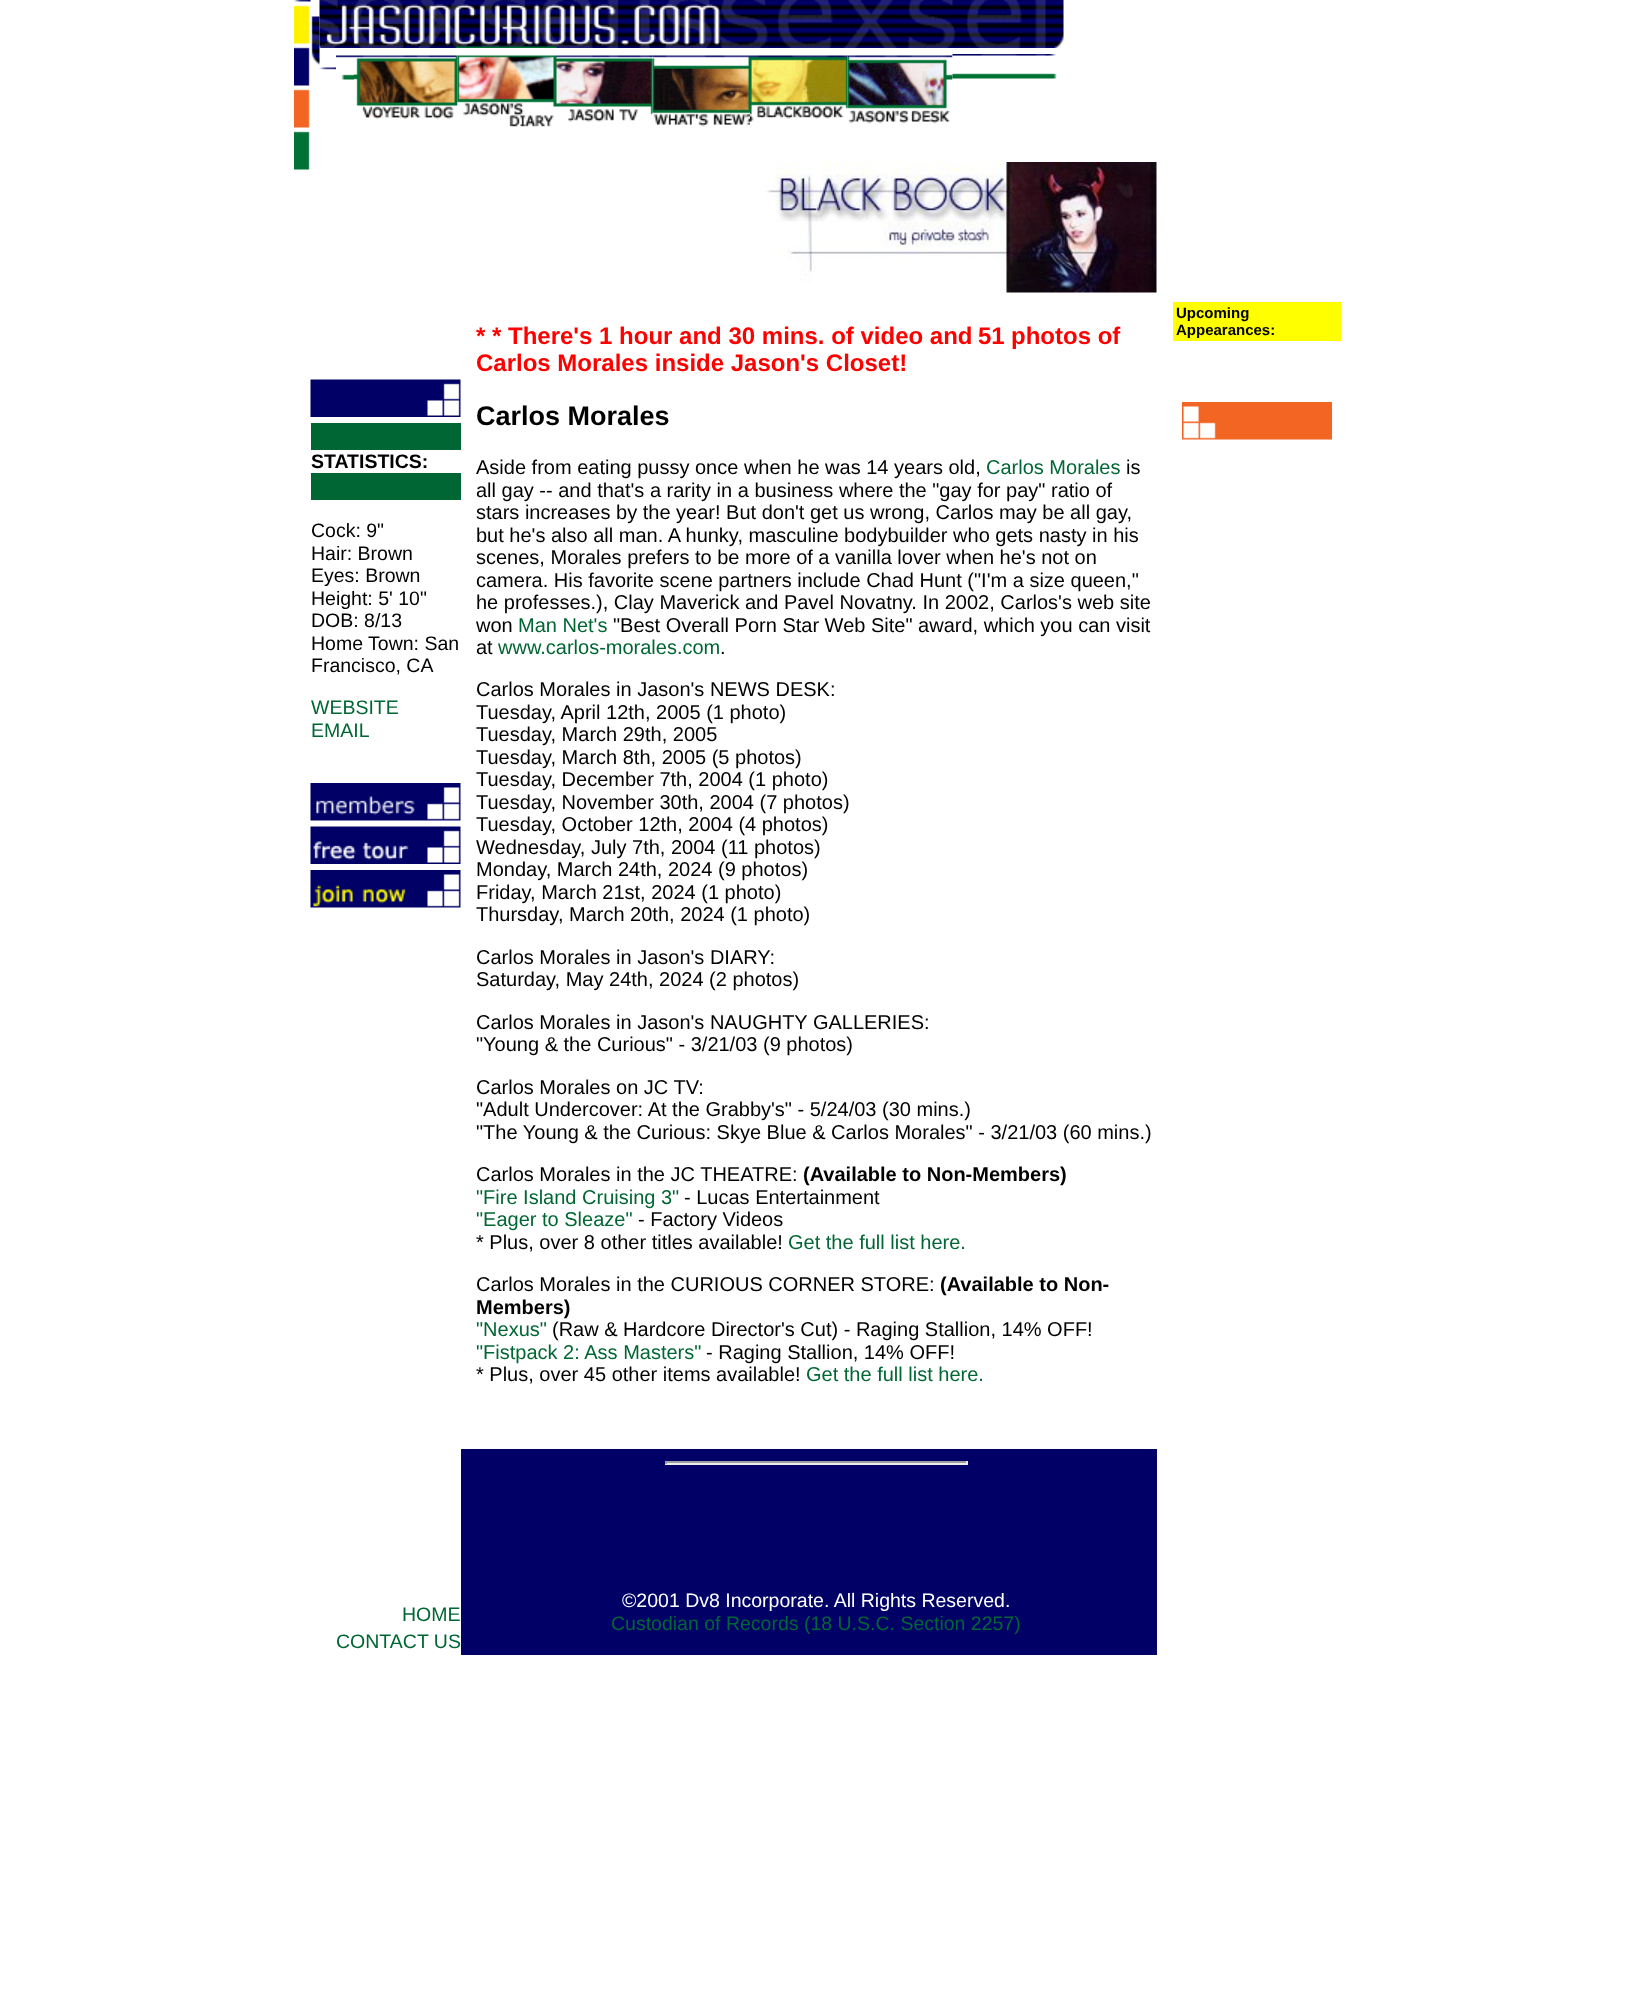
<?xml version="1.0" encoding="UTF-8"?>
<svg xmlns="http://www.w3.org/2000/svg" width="1637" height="1997">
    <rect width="100%" height="100%" fill="#FFFFFF"/>
    <image x="294" y="0" width="17" height="170" href="img_01.png"/>
    <image x="311" y="16" width="9" height="49" href="img_02.png"/>
    <image x="319" y="0" width="745" height="48" href="img_03.png"/>
    <image x="319" y="67" width="17" height="3" href="img_04.png"/>
    <image x="336" y="55" width="18" height="25" href="img_05.png"/>
    <image x="354" y="55" width="104" height="64" href="img_06.png"/>
    <image x="457" y="55" width="98" height="72" href="img_07.png"/>
    <image x="555" y="55" width="98" height="67" href="img_08.png"/>
    <image x="652" y="55" width="98" height="72" href="img_09.png"/>
    <image x="750" y="55" width="98" height="67" href="img_10.png"/>
    <image x="847" y="55" width="106" height="69" href="img_11.png"/>
    <image x="952" y="54" width="105" height="26" href="img_12.png"/>
    <image x="766" y="162" width="391" height="131" href="img_13.png"/>
    <image x="310" y="379" width="151" height="38" href="img_14.png"/>
    <rect x="311" y="423" width="150" height="27" fill="#006633"/>
    <text x="311" y="468" font-family="Liberation Sans" font-size="19.5" font-weight="700" fill="#000000">STATISTICS:</text>
    <rect x="311" y="473" width="150" height="27" fill="#006633"/>
    <text font-family="Liberation Sans" font-size="19.5" fill="#000000">
        <tspan x="311" y="537">Cock: 9"</tspan>
        <tspan x="311" y="560">Hair: Brown</tspan>
        <tspan x="311" y="582">Eyes: Brown</tspan>
        <tspan x="311" y="605">Height: 5' 10"</tspan>
        <tspan x="311" y="627">DOB: 8/13</tspan>
        <tspan x="311" y="650">Home Town: San</tspan>
        <tspan x="311" y="672">Francisco, CA</tspan>
    </text>
    <text font-family="Liberation Sans" font-size="19.5" fill="#006633">
        <tspan x="311" y="714">WEBSITE</tspan>
        <tspan x="311" y="737">EMAIL</tspan>
    </text>
    <image x="310" y="783" width="151" height="38" href="img_15.png"/>
    <image x="310" y="826" width="151" height="38" href="img_16.png"/>
    <image x="310" y="870" width="151" height="38" href="img_17.png"/>
    <text x="476" y="344" font-family="Liberation Sans" font-size="24" font-weight="700" fill="#FF0000">* * There's 1 hour and 30 mins. of video and</text>
    <text x="978" y="344" font-family="Liberation Sans" font-size="24" font-weight="700" fill="#FF0000">51</text>
    <text x="1011" y="344" font-family="Liberation Sans" font-size="24" font-weight="700" fill="#FF0000">photos of</text>
    <text x="476" y="371" font-family="Liberation Sans" font-size="24" font-weight="700" fill="#FF0000">Carlos Morales inside Jason's Closet!</text>
    <text x="476" y="425" font-family="Liberation Sans" font-size="27" font-weight="700" fill="#000000">Carlos Morales</text>
    <text x="476" y="474" font-family="Liberation Sans" font-size="20" fill="#000000">Aside from eating pussy once when he was 14 years old,</text>
    <text x="986" y="474" font-family="Liberation Sans" font-size="20" fill="#006633">Carlos Morales</text>
    <text x="1126" y="474" font-family="Liberation Sans" font-size="20" fill="#000000">is</text>
    <text font-family="Liberation Sans" font-size="20" fill="#000000">
        <tspan x="476" y="497">all gay -- and that's a rarity in a business where the "gay for pay" ratio of</tspan>
        <tspan x="476" y="519">stars increases by the year! But don't get us wrong, Carlos may be all gay,</tspan>
        <tspan x="476" y="542">but he's also all man. A hunky, masculine bodybuilder who gets nasty in his</tspan>
        <tspan x="476" y="564">scenes, Morales prefers to be more of a vanilla lover when he's not on</tspan>
        <tspan x="476" y="587">camera. His favorite scene partners include Chad Hunt ("I'm a size queen,"</tspan>
        <tspan x="476" y="609">he professes.), Clay Maverick and Pavel Novatny. In 2002, Carlos's web site</tspan>
        <tspan x="476" y="632">won</tspan>
    </text>
    <text x="518" y="632" font-family="Liberation Sans" font-size="20" fill="#006633">Man Net's</text>
    <text x="613" y="632" font-family="Liberation Sans" font-size="20" fill="#000000">"Best Overall Porn Star Web Site" award, which you can visit</text>
    <text x="476" y="654" font-family="Liberation Sans" font-size="20" fill="#000000">at</text>
    <text x="498" y="654" font-family="Liberation Sans" font-size="20" fill="#006633">www.carlos-morales.com</text>
    <text x="720" y="654" font-family="Liberation Sans" font-size="20" fill="#000000">.</text>
    <text font-family="Liberation Sans" font-size="20" fill="#000000">
        <tspan x="476" y="696">Carlos Morales in Jason's NEWS DESK:</tspan>
        <tspan x="476" y="719">Tuesday, April 12th, 2005 (1 photo)</tspan>
        <tspan x="476" y="741">Tuesday, March 29th, 2005</tspan>
        <tspan x="476" y="764">Tuesday, March 8th, 2005 (5 photos)</tspan>
        <tspan x="476" y="786">Tuesday, December 7th, 2004 (1 photo)</tspan>
        <tspan x="476" y="809">Tuesday, November 30th, 2004 (7 photos)</tspan>
        <tspan x="476" y="831">Tuesday, October 12th, 2004 (4 photos)</tspan>
        <tspan x="476" y="854">Wednesday, July 7th, 2004 (11 photos)</tspan>
        <tspan x="476" y="876">Monday, March 24th, 2024 (9 photos)</tspan>
        <tspan x="476" y="899">Friday, March 21st, 2024 (1 photo)</tspan>
        <tspan x="476" y="921">Thursday, March 20th, 2024 (1 photo)</tspan>
    </text>
    <text font-family="Liberation Sans" font-size="20" fill="#000000">
        <tspan x="476" y="964">Carlos Morales in Jason's DIARY:</tspan>
        <tspan x="476" y="986">Saturday, May 24th, 2024 (2 photos)</tspan>
    </text>
    <text font-family="Liberation Sans" font-size="20" fill="#000000">
        <tspan x="476" y="1029">Carlos Morales in Jason's NAUGHTY GALLERIES:</tspan>
        <tspan x="476" y="1051">"Young &amp; the Curious" - 3/21/03 (9 photos)</tspan>
    </text>
    <text font-family="Liberation Sans" font-size="20" fill="#000000">
        <tspan x="476" y="1094">Carlos Morales on JC TV:</tspan>
        <tspan x="476" y="1116">"Adult Undercover: At the Grabby's" - 5/24/03 (30 mins.)</tspan>
        <tspan x="476" y="1139">"The Young &amp; the Curious: Skye Blue &amp; Carlos Morales" - 3/21/03 (60 mins.)</tspan>
    </text>
    <text x="476" y="1181" font-family="Liberation Sans" font-size="20" fill="#000000">Carlos Morales in the JC THEATRE:</text>
    <text x="803" y="1181" font-family="Liberation Sans" font-size="20" font-weight="700" fill="#000000">(Available to Non-Members)</text>
    <text x="476" y="1204" font-family="Liberation Sans" font-size="20" fill="#006633">"Fire Island Cruising 3"</text>
    <text x="684" y="1204" font-family="Liberation Sans" font-size="20" fill="#000000">- Lucas Entertainment</text>
    <text x="476" y="1226" font-family="Liberation Sans" font-size="20" fill="#006633">"Eager to Sleaze"</text>
    <text x="638" y="1226" font-family="Liberation Sans" font-size="20" fill="#000000">- Factory Videos</text>
    <text x="476" y="1249" font-family="Liberation Sans" font-size="20" fill="#000000">* Plus, over 8 other titles available!</text>
    <text x="788" y="1249" font-family="Liberation Sans" font-size="20" fill="#006633">Get the full list here.</text>
    <text x="476" y="1291" font-family="Liberation Sans" font-size="20" fill="#000000">Carlos Morales in the CURIOUS CORNER STORE:</text>
    <text x="940" y="1291" font-family="Liberation Sans" font-size="20" font-weight="700" fill="#000000">(Available to Non-</text>
    <text x="476" y="1314" font-family="Liberation Sans" font-size="20" font-weight="700" fill="#000000">Members)</text>
    <text x="476" y="1336" font-family="Liberation Sans" font-size="20" fill="#006633">"Nexus"</text>
    <text x="552" y="1336" font-family="Liberation Sans" font-size="20" fill="#000000">(Raw &amp; Hardcore Director's Cut) - Raging Stallion, 14% OFF!</text>
    <text x="476" y="1359" font-family="Liberation Sans" font-size="20" fill="#006633">"Fistpack 2: Ass Masters"</text>
    <text x="706" y="1359" font-family="Liberation Sans" font-size="20" fill="#000000">- Raging Stallion, 14% OFF!</text>
    <text x="476" y="1381" font-family="Liberation Sans" font-size="20" fill="#000000">* Plus, over 45 other items available!</text>
    <text x="806" y="1381" font-family="Liberation Sans" font-size="20" fill="#006633">Get the full list here.</text>
    <rect x="1173" y="302" width="168" height="39" fill="#FFFF00"/>
    <text font-family="Liberation Sans" font-size="15" font-weight="700" fill="#000000">
        <tspan x="1176" y="318">Upcoming</tspan>
        <tspan x="1176" y="335">Appearances:</tspan>
    </text>
    <image x="1182" y="402" width="150" height="38" href="img_18.png"/>
    <rect x="461" y="1449" width="696" height="206" fill="#000066"/>
    <text x="402" y="1621" font-family="Liberation Sans" font-size="19.5" fill="#006633">HOME</text>
    <text x="336" y="1648" font-family="Liberation Sans" font-size="19.5" fill="#006633">CONTACT US</text>
    <rect x="665" y="1461" width="303" height="2" fill="#9F9F9F"/>
    <rect x="966" y="1461" width="2" height="3" fill="#EEEEEE"/>
    <rect x="665" y="1463" width="303" height="2" fill="#EEEEEE"/>
    <rect x="665" y="1461" width="2" height="3" fill="#9F9F9F"/>
    <text x="622" y="1607" font-family="Liberation Sans" font-size="19.5" fill="#FFFFFF">©2001 Dv8 Incorporate. All Rights Reserved.</text>
    <text x="611" y="1630" font-family="Liberation Sans" font-size="19.5" fill="#006633">Custodian of Records (18 U.S.C. Section 2257)</text>
</svg>
